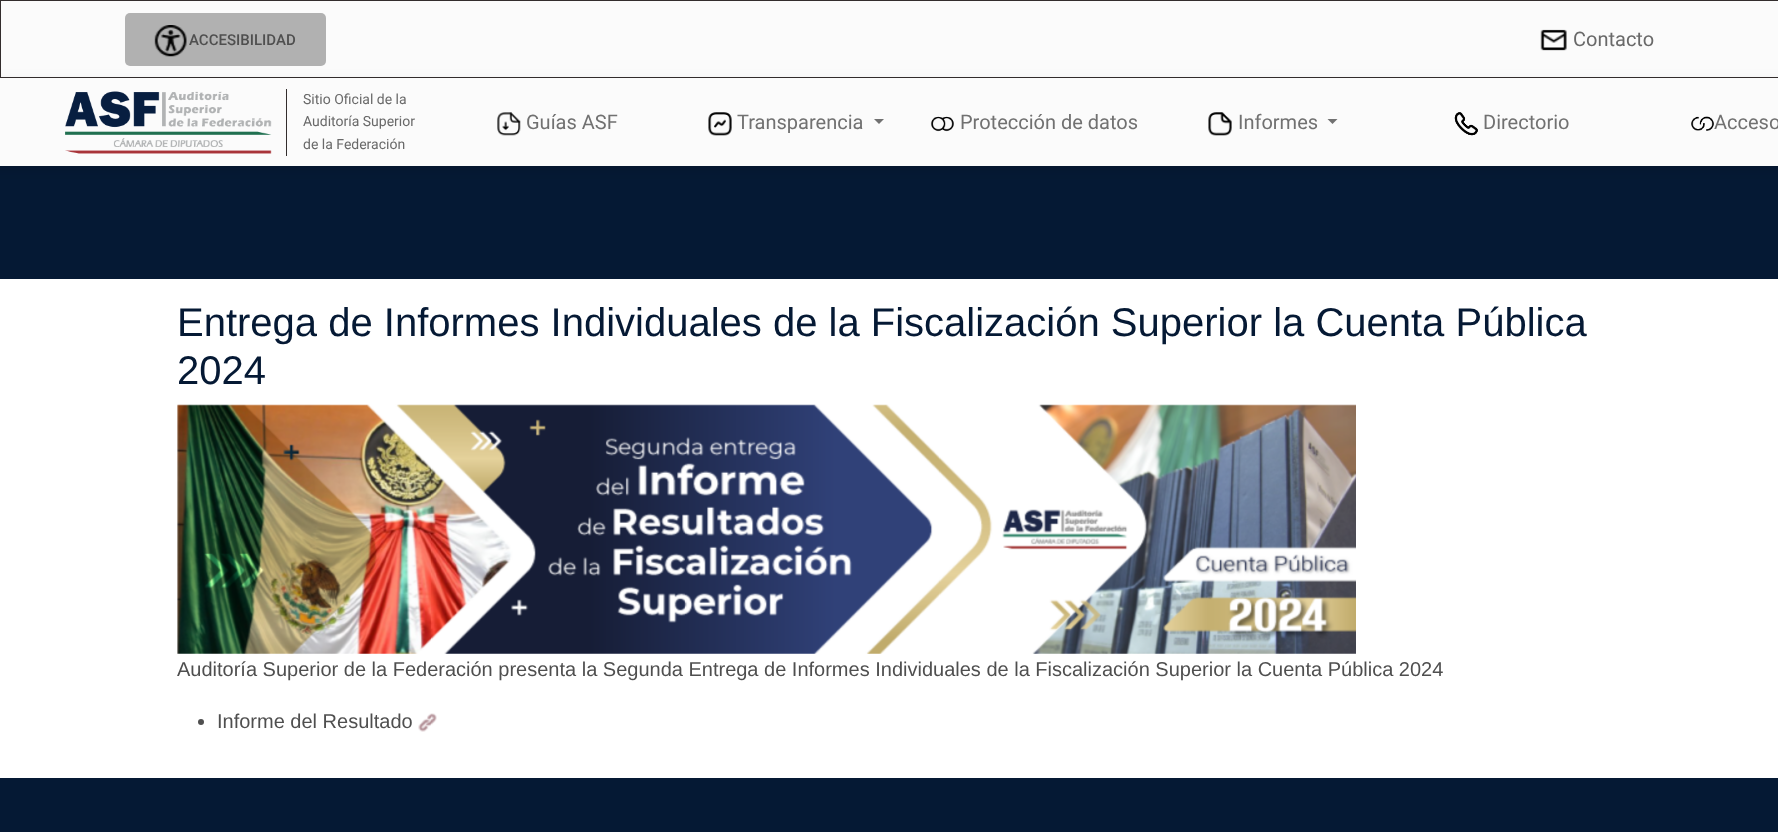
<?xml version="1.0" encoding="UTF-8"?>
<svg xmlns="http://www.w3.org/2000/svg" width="1778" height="832">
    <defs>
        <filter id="blur1" x="-50%" y="-200%" width="200%" height="500%"><feGaussianBlur stdDeviation="2.5"/></filter>
        <filter id="blur2" x="-50%" y="-200%" width="200%" height="500%"><feGaussianBlur stdDeviation="7.5"/></filter>
    </defs>
    <rect width="100%" height="100%" fill="#FFFFFF"/>
    <rect x="0.5" y="0.5" width="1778" height="77" fill="#FBFBFB" stroke="#332D2D"/>
    <rect x="125" y="13" width="201" height="53" rx="5" fill="#B1B1B1"/>
    <image x="154" y="25" width="33" height="32" href="img_01.png"/>
    <text x="189" y="45" font-family="Roboto" font-size="15" font-weight="500" fill="#4F4F4F">ACCESIBILIDAD</text>
    <image x="1540" y="29" width="27" height="22" href="img_02.png"/>
    <text x="1573" y="46" font-family="Roboto" font-size="20" fill="#696969">Contacto</text>
    <rect x="0" y="166" width="1778" height="113" fill="#051934"/>
    <rect x="-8" y="80" width="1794" height="89" fill="#000000" fill-opacity="0.05" filter="url(#blur1)"/>
    <rect x="-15" y="83" width="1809" height="88" fill="#000000" fill-opacity="0.07" filter="url(#blur2)"/>
    <rect x="0" y="78" width="1778" height="88" fill="#FBFBFB"/>
    <image x="65" y="91" width="207" height="63" href="img_03.png"/>
    <rect x="286" y="89" width="1" height="67" fill="#332D2D"/>
    <text font-family="Roboto" font-size="14" fill="#696969">
        <tspan x="303" y="104">Sitio Oficial de la</tspan>
        <tspan x="303" y="126">Auditoría Superior</tspan>
        <tspan x="303" y="149">de la Federación</tspan>
    </text>
    <image x="497" y="112" width="24" height="24" href="img_04.png"/>
    <text x="526" y="129" font-family="Roboto" font-size="20" fill="#717171">Guías ASF</text>
    <image x="708" y="112" width="24" height="24" href="img_05.png"/>
    <text x="737" y="129" font-family="Roboto" font-size="20" fill="#717171">Transparencia</text>
    <path d="M 874 119 H 884 L 879 124 Z" fill="#717171"/>
    <image x="930" y="116" width="24" height="16" href="img_06.png"/>
    <text x="960" y="129" font-family="Roboto" font-size="20" fill="#717171">Protección de datos</text>
    <image x="1208" y="112" width="24" height="24" href="img_07.png"/>
    <text x="1238" y="129" font-family="Roboto" font-size="20" fill="#717171">Informes</text>
    <path d="M 1327.5 119 H 1337.5 L 1332.5 124 Z" fill="#717171"/>
    <image x="1454" y="112" width="24" height="24" href="img_08.png"/>
    <text x="1483" y="129" font-family="Roboto" font-size="20" fill="#717171">Directorio</text>
    <image x="1691" y="116" width="23" height="15" href="img_09.png"/>
    <text x="1714" y="129" font-family="Roboto" font-size="20" fill="#717171">Acceso</text>
    <text font-family="Liberation Sans" font-size="40" fill="#051934">
        <tspan x="177" y="336">Entrega de Informes Individuales de la Fiscalización Superior la Cuenta Pública</tspan>
        <tspan x="177" y="384">2024</tspan>
    </text>
    <image x="177" y="404" width="1179" height="250" href="img_10.png"/>
    <text x="177" y="676" font-family="Liberation Sans" font-size="20" fill="#4F4F4F">Auditoría Superior de la Federación presenta la Segunda Entrega de Informes Individuales de la Fiscalización Superior la Cuenta Pública 2024</text>
    <circle cx="201" cy="722" r="3" fill="#4F4F4F"/>
    <text x="217" y="728" font-family="Liberation Sans" font-size="20" fill="#4F4F4F">Informe del Resultado</text>
    <image x="418" y="713" width="19" height="19" href="img_11.png"/>
    <rect x="0" y="778" width="1778" height="54" fill="#051934"/>
</svg>
